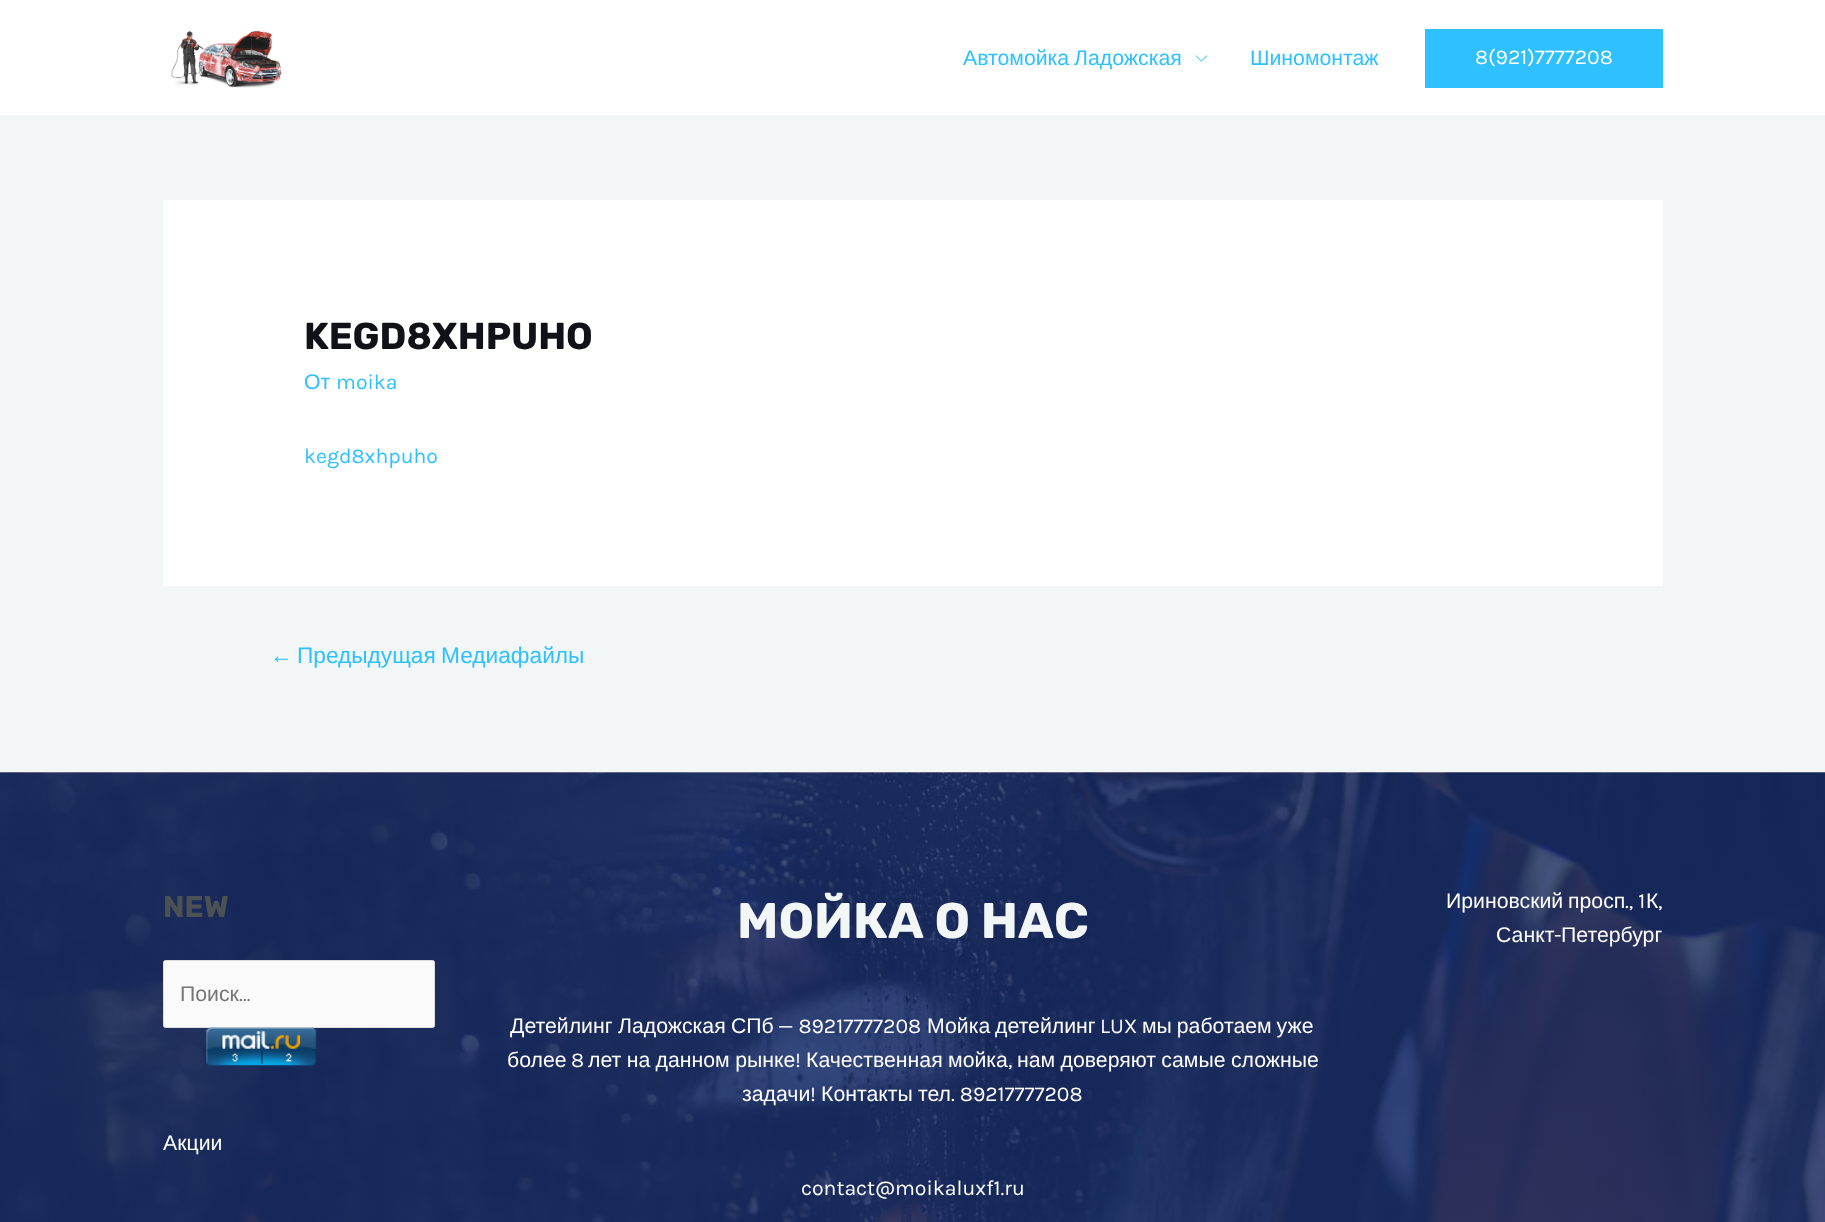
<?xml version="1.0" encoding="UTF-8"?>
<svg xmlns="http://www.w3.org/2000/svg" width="1825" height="1222">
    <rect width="100%" height="100%" fill="#F3F6F6"/>
    <rect x="0" y="0" width="1825" height="115" fill="#FFFFFF"/>
    <image x="171" y="30" width="111" height="58" href="img_01.png"/>
    <text x="963" y="65" word-spacing="-1" font-family="Liberation Sans" font-size="21.25" fill="#2FC1FF">Автомойка Ладожская</text>
    <image x="1195" y="55" width="13" height="7" href="img_02.png"/>
    <text x="1250" y="65" font-family="Liberation Sans" font-size="21.25" fill="#2FC1FF">Шиномонтаж</text>
    <rect x="1425" y="29" width="238" height="59" fill="#2FC1FF"/>
    <text x="1475" y="64" font-family="Karla" font-size="21.25" fill="#FFFFFF">8(921)7777208</text>
    <rect x="163" y="200" width="1500" height="386" fill="#FFFFFF"/>
    <text x="304" y="349" font-family="Rubik" font-size="37.5" font-weight="300" fill="#101218">KEGD8XHPUHO</text>
    <text x="304" y="389" font-family="Liberation Sans" font-size="21.25" fill="#2FC1FF">От</text>
    <text x="336" y="389" font-family="Karla" font-size="21.25" fill="#2FC1FF">moika</text>
    <text x="304" y="463" font-family="Karla" font-size="21.25" fill="#2FC1FF">kegd8xhpuho</text>
    <text x="270" y="663" font-family="Liberation Sans" font-size="22.7" fill="#2FC1FF">←</text>
    <text x="297" y="663" word-spacing="-1" font-family="Liberation Sans" font-size="22.7" fill="#2FC1FF">Предыдущая Медиафайлы</text>
    <image x="0" y="772" width="1825" height="450" href="img_03.png"/>
    <text x="163" y="917" font-family="Rubik" font-size="30" font-weight="300" fill="#4C5253">NEW</text>
    <rect x="163.5" y="960.5" width="271" height="67" rx="2" fill="#FAFAFA" stroke="#DDDDDD"/>
    <text x="180" y="1001" font-family="Liberation Sans" font-size="21.25" fill="#757575">Поиск</text>
    <text x="239" y="1001" font-family="Karla" font-size="21.25" fill="#757575">…</text>
    <image x="206" y="1027" width="111" height="40" href="img_04.png"/>
    <text x="163" y="1150" font-family="Liberation Sans" font-size="21.25" fill="#FFFFFF">Акции</text>
    <text x="737" y="938" font-family="Rubik" font-size="50" font-weight="300" fill="#F3F6F6">МОЙКА О НАС</text>
    <text x="510" y="1033" font-family="Liberation Sans" font-size="21.25" fill="#FFFFFF">Детейлинг</text>
    <text x="618" y="1033" font-family="Liberation Sans" font-size="21.25" fill="#FFFFFF">Ладожская</text>
    <text x="731" y="1033" font-family="Liberation Sans" font-size="21.25" fill="#FFFFFF">СПб</text>
    <text x="778" y="1033" font-family="Karla" font-size="21.25" fill="#FFFFFF">— 89217777208</text>
    <text x="927" y="1033" word-spacing="-1" font-family="Liberation Sans" font-size="21.25" fill="#FFFFFF">Мойка детейлинг</text>
    <text x="1100" y="1033" font-family="Karla" font-size="21.25" fill="#FFFFFF">LUX</text>
    <text x="1142" y="1033" word-spacing="-1" font-family="Liberation Sans" font-size="21.25" fill="#FFFFFF">мы работаем уже</text>
    <text x="507" y="1067" font-family="Liberation Sans" font-size="21.25" fill="#FFFFFF">более</text>
    <text x="571" y="1067" font-family="Karla" font-size="21.25" fill="#FFFFFF">8</text>
    <text x="588" y="1067" word-spacing="-0.5" font-family="Liberation Sans" font-size="21.25" fill="#FFFFFF">лет на данном рынке</text>
    <text x="795" y="1067" font-family="Karla" font-size="21.25" fill="#FFFFFF">!</text>
    <text x="806" y="1067" word-spacing="-0.5" font-family="Liberation Sans" font-size="21.25" fill="#FFFFFF">Качественная мойка</text>
    <text x="1008" y="1067" font-family="Karla" font-size="21.25" fill="#FFFFFF">,</text>
    <text x="1017" y="1067" word-spacing="-0.5" font-family="Liberation Sans" font-size="21.25" fill="#FFFFFF">нам доверяют самые сложные</text>
    <text x="742" y="1101" font-family="Liberation Sans" font-size="21.25" fill="#FFFFFF">задачи</text>
    <text x="810" y="1101" font-family="Karla" font-size="21.25" fill="#FFFFFF">!</text>
    <text x="821" y="1101" font-family="Liberation Sans" font-size="21.25" fill="#FFFFFF">Контакты</text>
    <text x="918" y="1101" font-family="Liberation Sans" font-size="21.25" fill="#FFFFFF">тел</text>
    <text x="951" y="1101" font-family="Karla" font-size="21.25" fill="#FFFFFF">. 89217777208</text>
    <text x="801" y="1195" font-family="Karla" font-size="21.25" fill="#FFFFFF">contact@moikaluxf1.ru</text>
    <text x="1446" y="908" font-family="Liberation Sans" font-size="21.25" fill="#FFFFFF">Ириновский</text>
    <text x="1568" y="908" font-family="Liberation Sans" font-size="21.25" fill="#FFFFFF">просп</text>
    <text x="1625" y="908" font-family="Karla" font-size="21.25" fill="#FFFFFF">., 1</text>
    <text x="1646" y="908" font-family="Liberation Sans" font-size="21.25" fill="#FFFFFF">К</text>
    <text x="1658" y="908" font-family="Karla" font-size="21.25" fill="#FFFFFF">,</text>
    <text x="1496" y="942" font-family="Liberation Sans" font-size="21.25" fill="#FFFFFF">Санкт</text>
    <text x="1554" y="942" font-family="Karla" font-size="21.25" fill="#FFFFFF">-</text>
    <text x="1561" y="942" font-family="Liberation Sans" font-size="21.25" fill="#FFFFFF">Петербург</text>
</svg>
